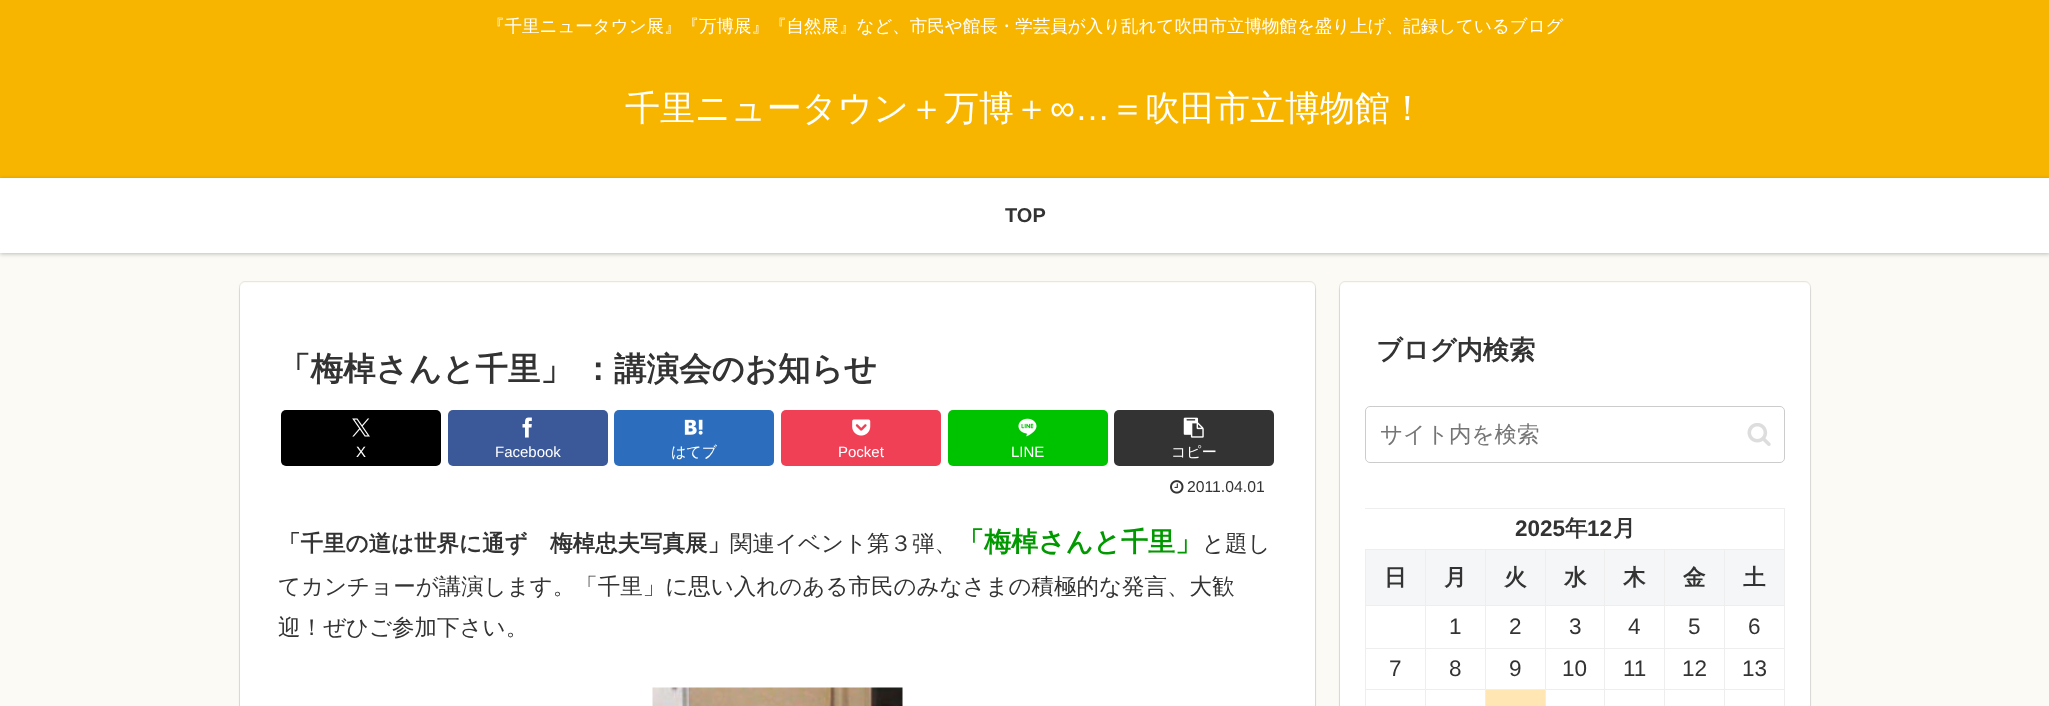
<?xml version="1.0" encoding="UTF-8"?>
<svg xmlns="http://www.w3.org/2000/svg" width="2049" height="706">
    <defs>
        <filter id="blur1" x="-50%" y="-200%" width="200%" height="500%"><feGaussianBlur stdDeviation="2"/></filter>
        <filter id="blur2" x="-50%" y="-200%" width="200%" height="500%"><feGaussianBlur stdDeviation="1"/></filter>
    </defs>
    <rect width="100%" height="100%" fill="#FBFAF5"/>
    <rect x="0" y="0" width="2049" height="178" fill="#F8B500"/>
    <text x="487" y="32" font-family="WenQuanYi Zen Hei" font-size="17.5" font-weight="500" fill="#FFFFFF">『千里ニュータウン展』『万博展』『自然展』など、市民や館長・学芸員が入り乱れて吹田市立博物館を盛り上げ、記録しているブログ</text>
    <text x="625" y="120" font-family="WenQuanYi Zen Hei" font-size="35" font-weight="500" fill="#FFFFFF">千里ニュータウン＋万博＋</text>
    <text x="1050" y="120" font-family="Liberation Sans" font-size="35" fill="#FFFFFF">∞…</text>
    <text x="1110" y="120" font-family="WenQuanYi Zen Hei" font-size="35" font-weight="500" fill="#FFFFFF">＝吹田市立博物館！</text>
    <rect x="0" y="179" width="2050" height="75" fill="#000000" fill-opacity="0.25" filter="url(#blur1)"/>
    <rect x="0" y="178" width="2049" height="75" fill="#FFFFFF"/>
    <text x="1005" y="222" font-family="Liberation Sans" font-size="20" font-weight="700" fill="#333333">TOP</text>
    <rect x="239.5" y="281.5" width="1076" height="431" rx="5.5" fill="none" stroke="#E7E6E1"/>
    <rect x="240" y="285" width="1075" height="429" rx="5" fill="#000000" fill-opacity="0.16" filter="url(#blur2)"/>
    <rect x="240" y="283" width="1075" height="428" rx="5" fill="#FFFFFF"/>
    <text x="278" y="380" word-spacing="-1" font-family="WenQuanYi Zen Hei" font-size="32.5" font-weight="700" fill="#333333">「梅棹さんと千里」 ：講演会のお知らせ</text>
    <rect x="281" y="410" width="160" height="56" rx="5" fill="#000000"/>
    <image x="352" y="418" width="18" height="19" href="img_01.png"/>
    <text x="356" y="457" font-family="Liberation Sans" font-size="15" fill="#FFFFFF">X</text>
    <rect x="448" y="410" width="160" height="56" rx="5" fill="#3B5998"/>
    <image x="522" y="417" width="10" height="21" href="img_02.png"/>
    <text x="495" y="457" font-family="Liberation Sans" font-size="15" fill="#FFFFFF">Facebook</text>
    <rect x="614" y="410" width="160" height="56" rx="5" fill="#2C6EBD"/>
    <image x="684" y="419" width="19" height="16" href="img_03.png"/>
    <text x="671" y="457" font-family="WenQuanYi Zen Hei" font-size="15" font-weight="500" fill="#FFFFFF">はてブ</text>
    <rect x="781" y="410" width="160" height="56" rx="5" fill="#EF4056"/>
    <image x="852" y="419" width="19" height="17" href="img_04.png"/>
    <text x="838" y="457" font-family="Liberation Sans" font-size="15" fill="#FFFFFF">Pocket</text>
    <rect x="948" y="410" width="160" height="56" rx="5" fill="#00C300"/>
    <image x="1018" y="418" width="19" height="19" href="img_05.png"/>
    <text x="1011" y="457" font-family="Liberation Sans" font-size="15" fill="#FFFFFF">LINE</text>
    <rect x="1114" y="410" width="160" height="56" rx="5" fill="#333333"/>
    <image x="1183" y="417" width="21" height="21" href="img_06.png"/>
    <text x="1171" y="457" font-family="WenQuanYi Zen Hei" font-size="15" font-weight="500" fill="#FFFFFF">コピー</text>
    <image x="1170" y="480" width="14" height="14" href="img_07.png"/>
    <text x="1187" y="492" font-family="Liberation Sans" font-size="15.75" fill="#333333">2011.04.01</text>
    <text x="278" y="551" font-family="WenQuanYi Zen Hei" font-size="22.5" font-weight="700" fill="#333333">「千里の道は世界に通ず　梅棹忠夫写真展」</text>
    <text x="730" y="551" font-family="WenQuanYi Zen Hei" font-size="22.5" font-weight="500" fill="#333333">関連イベント第３弾、</text>
    <text x="957" y="551" font-family="WenQuanYi Zen Hei" font-size="27" font-weight="700" fill="#009900">「梅棹さんと千里」</text>
    <text x="1202" y="551" font-family="WenQuanYi Zen Hei" font-size="22.5" font-weight="500" fill="#333333">と題し</text>
    <text font-family="WenQuanYi Zen Hei" font-size="22.5" font-weight="500" fill="#333333">
        <tspan x="278" y="594">てカンチョーが講演します。「千里」に思い入れのある市民のみなさまの積極的な発言、大歓</tspan>
        <tspan x="278" y="635">迎！ぜひご参加下さい。</tspan>
    </text>
    <image x="652" y="687" width="251" height="19" href="img_08.png"/>
    <rect x="1339.5" y="281.5" width="471" height="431" rx="5.5" fill="none" stroke="#E7E6E1"/>
    <rect x="1340" y="285" width="470" height="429" rx="5" fill="#000000" fill-opacity="0.16" filter="url(#blur2)"/>
    <rect x="1340" y="283" width="470" height="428" rx="5" fill="#FFFFFF"/>
    <text x="1376" y="359" font-family="WenQuanYi Zen Hei" font-size="26.25" font-weight="700" fill="#333333">ブログ内検索</text>
    <rect x="1365.5" y="406.5" width="419" height="56" rx="4.5" fill="none" stroke="#CCCCCC"/>
    <text x="1380" y="442" font-family="WenQuanYi Zen Hei" font-size="22.5" font-weight="500" fill="#757575">サイト内を検索</text>
    <image x="1747" y="423" width="24" height="23" href="img_09.png"/>
    <rect x="1365" y="508" width="420" height="1" fill="#EEEEEE"/>
    <rect x="1784" y="508" width="1" height="198" fill="#EEEEEE"/>
    <text x="1515" y="536" font-family="Liberation Sans" font-size="22.5" font-weight="700" fill="#333333">2025</text>
    <text x="1565" y="536" font-family="WenQuanYi Zen Hei" font-size="22.5" font-weight="700" fill="#333333">年</text>
    <text x="1587" y="536" font-family="Liberation Sans" font-size="22.5" font-weight="700" fill="#333333">12</text>
    <text x="1613" y="536" font-family="WenQuanYi Zen Hei" font-size="22.5" font-weight="700" fill="#333333">月</text>
    <rect x="1366" y="550" width="59" height="55" fill="#F5F6F7"/>
    <rect x="1724" y="549" width="61" height="1" fill="#EEEEEE"/>
    <rect x="1724" y="605" width="61" height="1" fill="#EEEEEE"/>
    <rect x="1724" y="648" width="61" height="1" fill="#EEEEEE"/>
    <rect x="1724" y="689" width="61" height="1" fill="#EEEEEE"/>
    <rect x="1724" y="689" width="1" height="17" fill="#EEEEEE"/>
    <rect x="1664" y="689" width="61" height="1" fill="#EEEEEE"/>
    <rect x="1724" y="648" width="1" height="42" fill="#EEEEEE"/>
    <rect x="1664" y="648" width="61" height="1" fill="#EEEEEE"/>
    <rect x="1724" y="605" width="1" height="44" fill="#EEEEEE"/>
    <rect x="1664" y="605" width="61" height="1" fill="#EEEEEE"/>
    <rect x="1724" y="549" width="1" height="57" fill="#EEEEEE"/>
    <rect x="1664" y="549" width="61" height="1" fill="#EEEEEE"/>
    <rect x="1664" y="689" width="1" height="17" fill="#EEEEEE"/>
    <rect x="1604" y="689" width="61" height="1" fill="#EEEEEE"/>
    <rect x="1664" y="648" width="1" height="42" fill="#EEEEEE"/>
    <rect x="1604" y="648" width="61" height="1" fill="#EEEEEE"/>
    <rect x="1664" y="605" width="1" height="44" fill="#EEEEEE"/>
    <rect x="1604" y="605" width="61" height="1" fill="#EEEEEE"/>
    <rect x="1664" y="549" width="1" height="57" fill="#EEEEEE"/>
    <rect x="1604" y="549" width="61" height="1" fill="#EEEEEE"/>
    <rect x="1604" y="689" width="1" height="17" fill="#EEEEEE"/>
    <rect x="1545" y="689" width="60" height="1" fill="#EEEEEE"/>
    <rect x="1604" y="648" width="1" height="42" fill="#EEEEEE"/>
    <rect x="1545" y="648" width="60" height="1" fill="#EEEEEE"/>
    <rect x="1604" y="605" width="1" height="44" fill="#EEEEEE"/>
    <rect x="1545" y="605" width="60" height="1" fill="#EEEEEE"/>
    <rect x="1604" y="549" width="1" height="57" fill="#EEEEEE"/>
    <rect x="1545" y="549" width="60" height="1" fill="#EEEEEE"/>
    <rect x="1545" y="689" width="1" height="17" fill="#EEEEEE"/>
    <rect x="1485" y="689" width="61" height="1" fill="#EEEEEE"/>
    <rect x="1545" y="648" width="1" height="42" fill="#EEEEEE"/>
    <rect x="1485" y="648" width="61" height="1" fill="#EEEEEE"/>
    <rect x="1545" y="605" width="1" height="44" fill="#EEEEEE"/>
    <rect x="1485" y="605" width="61" height="1" fill="#EEEEEE"/>
    <rect x="1545" y="549" width="1" height="57" fill="#EEEEEE"/>
    <rect x="1485" y="549" width="61" height="1" fill="#EEEEEE"/>
    <rect x="1485" y="689" width="1" height="17" fill="#EEEEEE"/>
    <rect x="1425" y="689" width="61" height="1" fill="#EEEEEE"/>
    <rect x="1485" y="648" width="1" height="42" fill="#EEEEEE"/>
    <rect x="1425" y="648" width="61" height="1" fill="#EEEEEE"/>
    <rect x="1485" y="605" width="1" height="44" fill="#EEEEEE"/>
    <rect x="1425" y="605" width="61" height="1" fill="#EEEEEE"/>
    <rect x="1485" y="549" width="1" height="57" fill="#EEEEEE"/>
    <rect x="1425" y="549" width="61" height="1" fill="#EEEEEE"/>
    <rect x="1425" y="689" width="1" height="17" fill="#EEEEEE"/>
    <rect x="1365" y="689" width="61" height="1" fill="#EEEEEE"/>
    <rect x="1425" y="648" width="1" height="42" fill="#EEEEEE"/>
    <rect x="1365" y="648" width="61" height="1" fill="#EEEEEE"/>
    <rect x="1425" y="605" width="1" height="44" fill="#EEEEEE"/>
    <rect x="1365" y="605" width="61" height="1" fill="#EEEEEE"/>
    <rect x="1425" y="549" width="1" height="57" fill="#EEEEEE"/>
    <rect x="1365" y="549" width="61" height="1" fill="#EEEEEE"/>
    <rect x="1365" y="689" width="1" height="17" fill="#EEEEEE"/>
    <rect x="1365" y="648" width="1" height="42" fill="#EEEEEE"/>
    <rect x="1365" y="605" width="1" height="44" fill="#EEEEEE"/>
    <rect x="1365" y="549" width="1" height="57" fill="#EEEEEE"/>
    <text x="1384" y="585" font-family="WenQuanYi Zen Hei" font-size="22.5" font-weight="700" fill="#333333">日</text>
    <rect x="1426" y="550" width="59" height="55" fill="#F5F6F7"/>
    <text x="1444" y="585" font-family="WenQuanYi Zen Hei" font-size="22.5" font-weight="700" fill="#333333">月</text>
    <rect x="1486" y="550" width="59" height="55" fill="#F5F6F7"/>
    <text x="1504" y="585" font-family="WenQuanYi Zen Hei" font-size="22.5" font-weight="700" fill="#333333">火</text>
    <rect x="1546" y="550" width="58" height="55" fill="#F5F6F7"/>
    <text x="1564" y="585" font-family="WenQuanYi Zen Hei" font-size="22.5" font-weight="700" fill="#333333">水</text>
    <rect x="1605" y="550" width="59" height="55" fill="#F5F6F7"/>
    <text x="1623" y="585" font-family="WenQuanYi Zen Hei" font-size="22.5" font-weight="700" fill="#333333">木</text>
    <rect x="1665" y="550" width="59" height="55" fill="#F5F6F7"/>
    <text x="1683" y="585" font-family="WenQuanYi Zen Hei" font-size="22.5" font-weight="700" fill="#333333">金</text>
    <rect x="1725" y="550" width="59" height="55" fill="#F5F6F7"/>
    <text x="1743" y="585" font-family="WenQuanYi Zen Hei" font-size="22.5" font-weight="700" fill="#333333">土</text>
    <text x="1449" y="634" font-family="Liberation Sans" font-size="22.5" fill="#333333">1</text>
    <text x="1509" y="634" font-family="Liberation Sans" font-size="22.5" fill="#333333">2</text>
    <text x="1569" y="634" font-family="Liberation Sans" font-size="22.5" fill="#333333">3</text>
    <text x="1628" y="634" font-family="Liberation Sans" font-size="22.5" fill="#333333">4</text>
    <text x="1688" y="634" font-family="Liberation Sans" font-size="22.5" fill="#333333">5</text>
    <text x="1748" y="634" font-family="Liberation Sans" font-size="22.5" fill="#333333">6</text>
    <text x="1389" y="676" font-family="Liberation Sans" font-size="22.5" fill="#333333">7</text>
    <text x="1449" y="676" font-family="Liberation Sans" font-size="22.5" fill="#333333">8</text>
    <text x="1509" y="676" font-family="Liberation Sans" font-size="22.5" fill="#333333">9</text>
    <text x="1562" y="676" font-family="Liberation Sans" font-size="22.5" fill="#333333">10</text>
    <text x="1623" y="676" font-family="Liberation Sans" font-size="22.5" fill="#333333">11</text>
    <text x="1682" y="676" font-family="Liberation Sans" font-size="22.5" fill="#333333">12</text>
    <text x="1742" y="676" font-family="Liberation Sans" font-size="22.5" fill="#333333">13</text>
    <rect x="1486" y="690" width="59" height="16" fill="#FFE6B2"/>
</svg>
